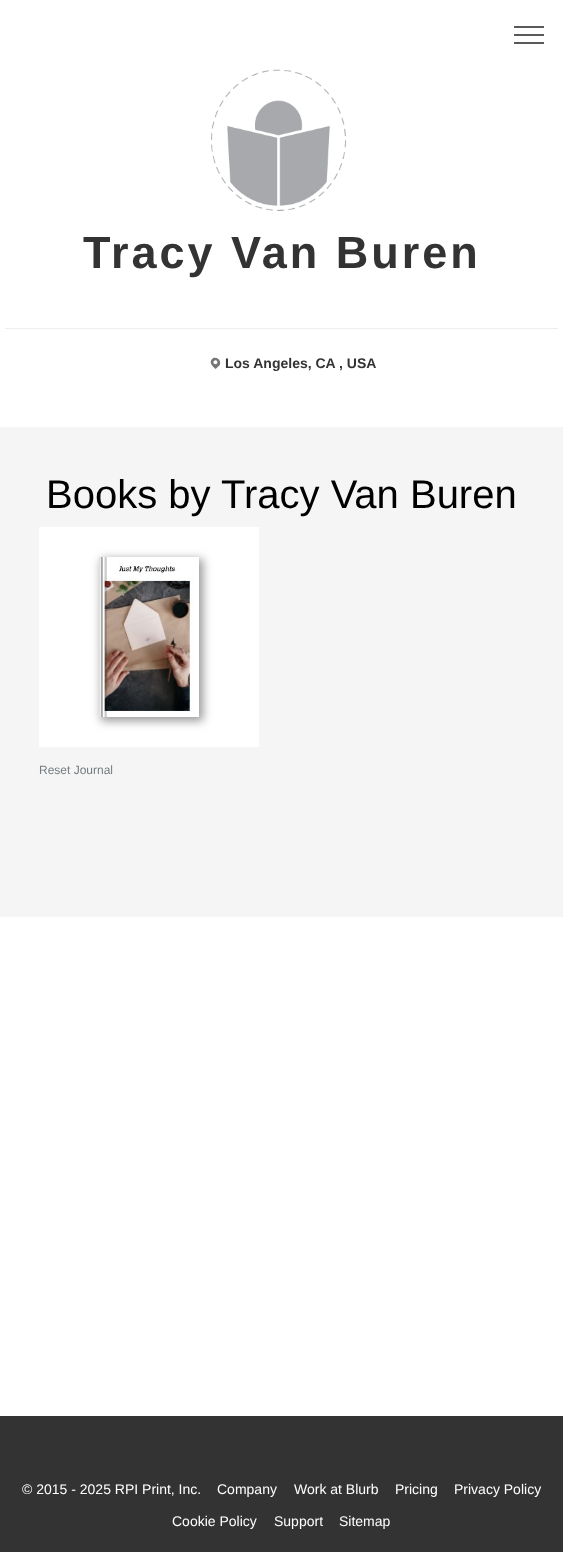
<?xml version="1.0" encoding="UTF-8"?>
<svg xmlns="http://www.w3.org/2000/svg" width="563" height="1552">
    <defs>
        <clipPath id="clip1"><path d="M 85 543 H 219 V 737 H 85 Z M 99 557 H 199 V 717 H 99 Z" clip-rule="evenodd"/></clipPath>
        <filter id="blur1" x="-50%" y="-200%" width="200%" height="500%"><feGaussianBlur stdDeviation="5"/></filter>
        <linearGradient id="g1" gradientUnits="userSpaceOnUse" x1="99" y1="637" x2="109" y2="637"><stop offset="0" stop-color="#000000" stop-opacity="0.2"/><stop offset="0.12" stop-color="#000000" stop-opacity="0"/><stop offset="0.29" stop-color="#000000" stop-opacity="0.45"/><stop offset="0.45" stop-color="#000000" stop-opacity="0"/><stop offset="0.7" stop-color="#000000" stop-opacity="0.25"/><stop offset="0.85" stop-color="#000000" stop-opacity="0"/><stop offset="1" stop-color="#000000" stop-opacity="0"/></linearGradient>
    </defs>
    <rect width="100%" height="100%" fill="#FFFFFF"/>
    <rect x="514" y="42" width="30" height="2" fill="#595959"/>
    <rect x="514" y="34" width="30" height="2" fill="#595959"/>
    <rect x="514" y="26" width="30" height="2" fill="#595959"/>
    <image x="211" y="69" width="136" height="142" href="img_01.png"/>
    <text x="83" y="268" font-family="Liberation Sans" font-size="45" font-weight="700" letter-spacing="3" fill="#333333">Tracy Van Buren</text>
    <rect x="5" y="328" width="553" height="1" fill="#EEEEEE"/>
    <path d="M 212 359 C 215.5 355.5 221.5 359.5 220 364.5 C 219 366 217 367.5 215.5 369 C 213 366.5 208.5 363 212 359 Z" fill="#757575"/>
    <path d="M 214 361 C 216 359 218.5 362 217 363.5 C 215 365.5 212 362.5 214 361 Z" fill="#FFFFFF"/>
    <text x="225" y="368" font-family="Liberation Sans" font-size="14" font-weight="700" fill="#333333">Los Angeles, CA , USA</text>
    <rect x="0" y="427" width="563" height="490" fill="#F5F5F5"/>
    <text x="46" y="508" font-family="Liberation Sans" font-size="40" fill="#000000">Books by</text>
    <text x="221" y="508" font-family="Liberation Sans" font-size="40" fill="#000000">Tracy Van Buren</text>
    <rect x="39" y="527" width="220" height="220" fill="#FFFFFF"/>
    <g clip-path="url(#clip1)">
        <rect x="101" y="559" width="102" height="162" fill="#999999" filter="url(#blur1)"/>
    </g>
    <image x="99" y="562" width="95" height="150" href="img_02.png"/>
    <rect x="99" y="557" width="8" height="160" fill="url(#g1)"/>
    <text x="39" y="774" font-family="Liberation Sans" font-size="12" fill="#747D82">Reset Journal</text>
    <rect x="0" y="1416" width="563" height="136" fill="#333333"/>
    <text x="22" y="1494" font-family="Liberation Sans" font-size="14" fill="#FFFFFF">© 2015 - 2025 RPI Print, Inc.</text>
    <text x="217" y="1494" font-family="Liberation Sans" font-size="14" fill="#FFFFFF">Company</text>
    <text x="294" y="1494" font-family="Liberation Sans" font-size="14" fill="#FFFFFF">Work at Blurb</text>
    <text x="395" y="1494" font-family="Liberation Sans" font-size="14" fill="#FFFFFF">Pricing</text>
    <text x="454" y="1494" font-family="Liberation Sans" font-size="14" fill="#FFFFFF">Privacy Policy</text>
    <text x="172" y="1526" font-family="Liberation Sans" font-size="14" fill="#FFFFFF">Cookie Policy</text>
    <text x="274" y="1526" font-family="Liberation Sans" font-size="14" fill="#FFFFFF">Support</text>
    <text x="339" y="1526" font-family="Liberation Sans" font-size="14" fill="#FFFFFF">Sitemap</text>
</svg>
